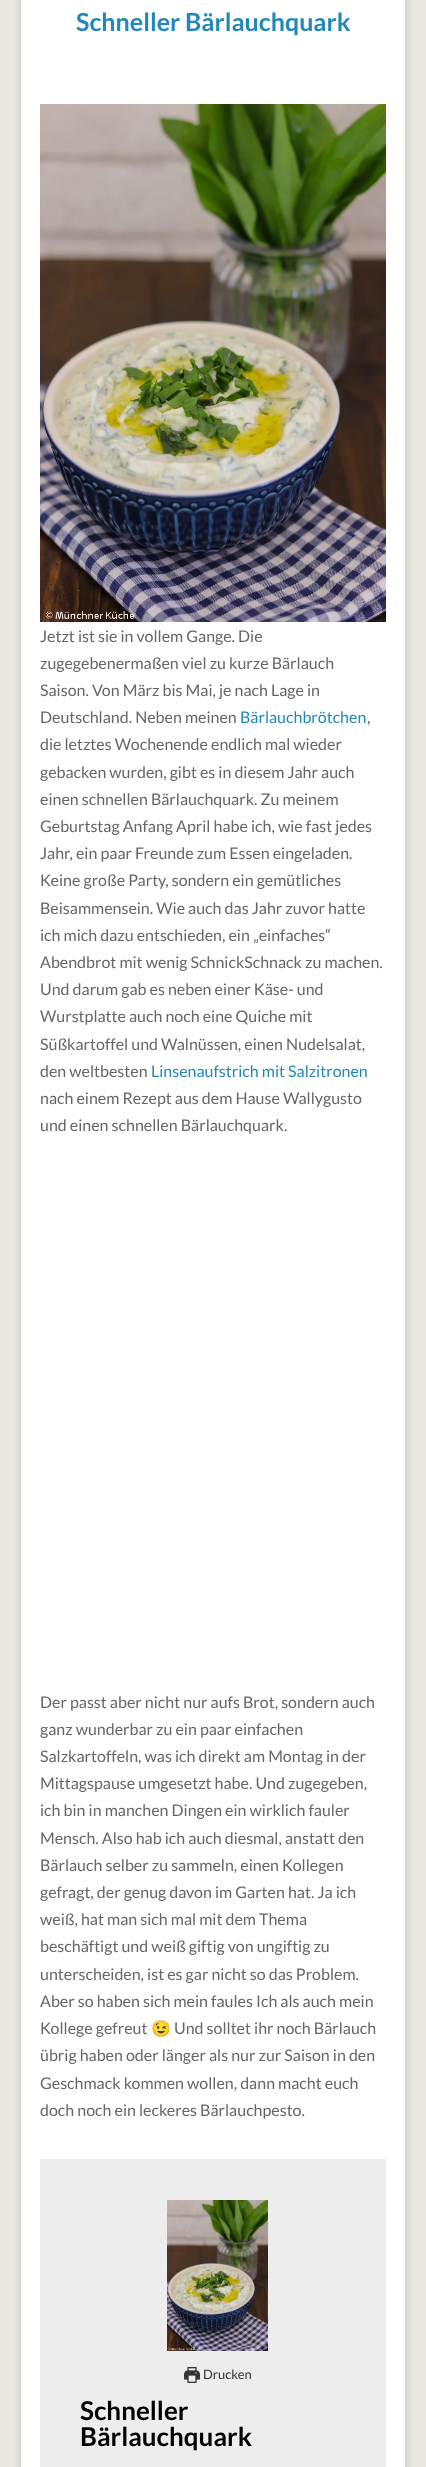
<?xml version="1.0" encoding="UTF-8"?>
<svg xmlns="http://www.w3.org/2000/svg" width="426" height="2467">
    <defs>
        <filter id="blur1" x="-50%" y="-200%" width="200%" height="500%"><feGaussianBlur stdDeviation="5"/></filter>
    </defs>
    <rect width="100%" height="100%" fill="#EAE9E1"/>
    <rect x="21" y="-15" width="384" height="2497" fill="#000000" fill-opacity="0.2" filter="url(#blur1)"/>
    <rect x="21" y="0" width="384" height="2467" fill="#FFFFFF"/>
    <text x="76" y="31" font-family="Lato" font-size="25" font-weight="700" fill="#2288BB">Schneller Bärlauchquark</text>
    <image x="40" y="104" width="346" height="518" href="img_01.png"/>
    <text font-family="Lato" font-size="16" fill="#666666">
        <tspan x="40" y="642">Jetzt ist sie in vollem Gange. Die</tspan>
        <tspan x="40" y="669">zugegebenermaßen viel zu kurze Bärlauch</tspan>
        <tspan x="40" y="696">Saison. Von März bis Mai, je nach Lage in</tspan>
        <tspan x="40" y="723">Deutschland. Neben meinen</tspan>
    </text>
    <text x="240" y="723" font-family="Lato" font-size="16" fill="#2288BB">Bärlauchbrötchen</text>
    <text x="367" y="723" font-family="Lato" font-size="16" fill="#666666">,</text>
    <text font-family="Lato" font-size="16" fill="#666666">
        <tspan x="40" y="750">die letztes Wochenende endlich mal wieder</tspan>
        <tspan x="40" y="778">gebacken wurden, gibt es in diesem Jahr auch</tspan>
        <tspan x="40" y="805">einen schnellen Bärlauchquark. Zu meinem</tspan>
        <tspan x="40" y="832">Geburtstag Anfang April habe ich, wie fast jedes</tspan>
        <tspan x="40" y="859">Jahr, ein paar Freunde zum Essen eingeladen.</tspan>
        <tspan x="40" y="886">Keine große Party, sondern ein gemütliches</tspan>
        <tspan x="40" y="914">Beisammensein. Wie auch das Jahr zuvor hatte</tspan>
        <tspan x="40" y="941">ich mich dazu entschieden, ein „einfaches“</tspan>
        <tspan x="40" y="968">Abendbrot mit wenig SchnickSchnack zu machen.</tspan>
        <tspan x="40" y="995">Und darum gab es neben einer Käse- und</tspan>
        <tspan x="40" y="1022">Wurstplatte auch noch eine Quiche mit</tspan>
        <tspan x="40" y="1050">Süßkartoffel und Walnüssen, einen Nudelsalat,</tspan>
        <tspan x="40" y="1077">den weltbesten</tspan>
    </text>
    <text x="151" y="1077" font-family="Lato" font-size="16" fill="#2288BB">Linsenaufstrich mit Salzitronen</text>
    <text font-family="Lato" font-size="16" fill="#666666">
        <tspan x="40" y="1104">nach einem Rezept aus dem Hause Wallygusto</tspan>
        <tspan x="40" y="1131">und einen schnellen Bärlauchquark.</tspan>
    </text>
    <text font-family="Lato" font-size="16" fill="#666666">
        <tspan x="40" y="1708">Der passt aber nicht nur aufs Brot, sondern auch</tspan>
        <tspan x="40" y="1735">ganz wunderbar zu ein paar einfachen</tspan>
        <tspan x="40" y="1762">Salzkartoffeln, was ich direkt am Montag in der</tspan>
        <tspan x="40" y="1789">Mittagspause umgesetzt habe. Und zugegeben,</tspan>
        <tspan x="40" y="1816">ich bin in manchen Dingen ein wirklich fauler</tspan>
        <tspan x="40" y="1844">Mensch. Also hab ich auch diesmal, anstatt den</tspan>
        <tspan x="40" y="1871">Bärlauch selber zu sammeln, einen Kollegen</tspan>
        <tspan x="40" y="1898">gefragt, der genug davon im Garten hat. Ja ich</tspan>
        <tspan x="40" y="1925">weiß, hat man sich mal mit dem Thema</tspan>
        <tspan x="40" y="1952">beschäftigt und weiß giftig von ungiftig zu</tspan>
        <tspan x="40" y="1980">unterscheiden, ist es gar nicht so das Problem.</tspan>
        <tspan x="40" y="2007">Aber so haben sich mein faules Ich als auch mein</tspan>
        <tspan x="40" y="2034">Kollege gefreut</tspan>
    </text>
    <text x="151" y="2034" font-family="Noto Color Emoji" font-size="16" fill="#666666">😉</text>
    <text x="174" y="2034" font-family="Lato" font-size="16" fill="#666666">Und solltet ihr noch Bärlauch</text>
    <text font-family="Lato" font-size="16" fill="#666666">
        <tspan x="40" y="2061">übrig haben oder länger als nur zur Saison in den</tspan>
        <tspan x="40" y="2089">Geschmack kommen wollen, dann macht euch</tspan>
        <tspan x="40" y="2116">doch noch ein leckeres Bärlauchpesto.</tspan>
    </text>
    <rect x="40" y="2159" width="346" height="308" fill="#EDEDED"/>
    <image x="167" y="2200" width="101" height="151" href="img_02.png"/>
    <image x="184" y="2367" width="16" height="16" href="img_03.png"/>
    <text x="203" y="2379" font-family="Lato" font-size="13" fill="#333333">Drucken</text>
    <text font-family="Lato" font-size="26" font-weight="700" fill="#000000">
        <tspan x="80" y="2420">Schneller</tspan>
        <tspan x="80" y="2446">Bärlauchquark</tspan>
    </text>
</svg>
